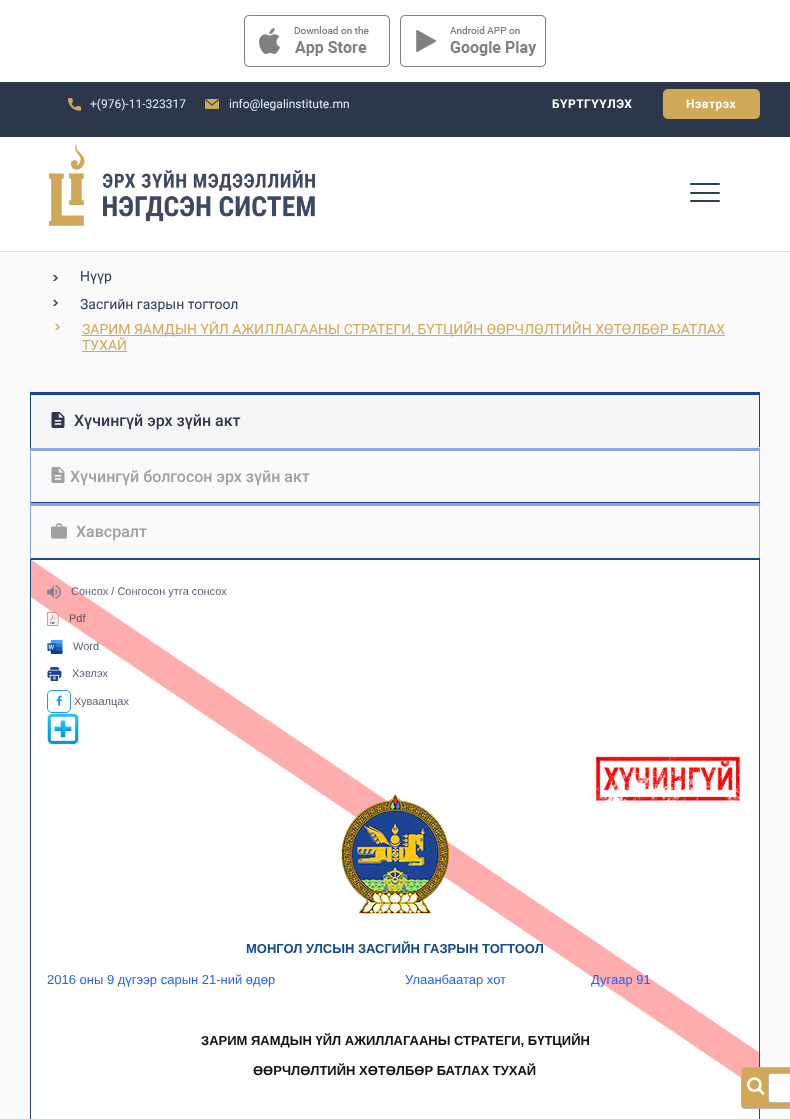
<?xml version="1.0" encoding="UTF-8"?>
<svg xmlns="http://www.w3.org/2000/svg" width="790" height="1119">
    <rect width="100%" height="100%" fill="#FAFAFA"/>
    <rect x="0" y="0" width="790" height="82" fill="#FFFFFF"/>
    <image x="244" y="15" width="146" height="52" href="img_01.png"/>
    <image x="400" y="15" width="146" height="52" href="img_02.png"/>
    <rect x="0" y="82" width="790" height="55" fill="#2D374B"/>
    <image x="68" y="98" width="13" height="13" href="img_03.png"/>
    <text x="90" y="108" font-family="Roboto" font-size="12" fill="#E8EDF8">+(976)-11-323317</text>
    <image x="205" y="99" width="14" height="10" href="img_04.png"/>
    <text x="229" y="108" font-family="Roboto" font-size="12" fill="#E8EDF8">info@legalinstitute.mn</text>
    <text x="552" y="108" font-family="Roboto" font-size="12" font-weight="700" letter-spacing="0.5" fill="#FFFFFF">БҮРТГҮҮЛЭХ</text>
    <rect x="663" y="89" width="97" height="30" rx="5" fill="#D1A858"/>
    <text x="686" y="108" font-family="Roboto" font-size="12" font-weight="700" letter-spacing="0.5" fill="#FFFFFF">Нэвтрэх</text>
    <rect x="0" y="137" width="790" height="114" fill="#FFFFFF"/>
    <image x="49" y="142" width="266" height="84" href="img_05.png"/>
    <rect x="690" y="183" width="30" height="2" rx="1" fill="#284254"/>
    <rect x="690" y="192" width="30" height="2" rx="1" fill="#284254"/>
    <rect x="690" y="200" width="30" height="2" rx="1" fill="#284254"/>
    <rect x="0" y="251" width="790" height="1" fill="#DDDDDD"/>
    <image x="53" y="275" width="5" height="6" href="img_06.png"/>
    <text x="80" y="281" font-family="Roboto" font-size="14" fill="#2E3B52">Нүүр</text>
    <image x="53" y="300" width="5" height="6" href="img_06.png"/>
    <text x="80" y="309" font-family="Roboto" font-size="14" fill="#2E3B52">Засгийн газрын тогтоол</text>
    <image x="55" y="324" width="5" height="6" href="img_07.png"/>
    <rect x="82" y="335" width="643" height="1" fill="#D1A858"/>
    <text font-family="Roboto" font-size="14" fill="#D1A858">
        <tspan x="82" y="334">ЗАРИМ ЯАМДЫН ҮЙЛ АЖИЛЛАГААНЫ СТРАТЕГИ, БҮТЦИЙН ӨӨРЧЛӨЛТИЙН ХӨТӨЛБӨР БАТЛАХ</tspan>
        <tspan x="82" y="350">ТУХАЙ</tspan>
    </text>
    <rect x="82" y="351" width="45" height="1" fill="#D1A858"/>
    <rect x="30" y="559" width="730" height="1" fill="#1B4392"/>
    <rect x="31" y="395" width="728" height="52" fill="#F4F6F8"/>
    <rect x="30" y="392" width="730" height="3" fill="#1B4392"/>
    <rect x="759" y="392" width="1" height="56" fill="#1B4392"/>
    <rect x="30" y="447" width="730" height="1" fill="#F4F6F8"/>
    <rect x="30" y="392" width="1" height="56" fill="#1B4392"/>
    <image x="51" y="412" width="14" height="16" href="img_08.png"/>
    <text x="74" y="426" font-family="Roboto" font-size="16" font-weight="500" fill="#2D374B">Хүчингүй эрх зүйн акт</text>
    <rect x="30" y="448" width="730" height="3" fill="#89A5DC"/>
    <rect x="759" y="448" width="1" height="55" fill="#89A5DC"/>
    <rect x="30" y="502" width="730" height="1" fill="#1B4392"/>
    <rect x="30" y="448" width="1" height="55" fill="#89A5DC"/>
    <image x="51" y="467" width="14" height="16" href="img_09.png"/>
    <text x="70" y="482" font-family="Roboto" font-size="16" font-weight="500" fill="#A0A0A0">Хүчингүй болгосон эрх зүйн акт</text>
    <rect x="30" y="503" width="730" height="3" fill="#89A5DC"/>
    <rect x="759" y="503" width="1" height="56" fill="#89A5DC"/>
    <rect x="30" y="558" width="730" height="1" fill="#1B4392"/>
    <rect x="30" y="503" width="1" height="56" fill="#89A5DC"/>
    <image x="51" y="523" width="16" height="16" href="img_10.png"/>
    <text x="76" y="537" font-family="Roboto" font-size="16" font-weight="500" fill="#A0A0A0">Хавсралт</text>
    <path d="M 30 560 H 760 V 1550 C 760 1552 759 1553 757 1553 H 33 C 31 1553 30 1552 30 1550 Z M 31 560 H 759 V 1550 C 759 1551 758 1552 757 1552 H 33 C 32 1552 31 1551 31 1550 Z" fill="#1B4392" fill-rule="evenodd"/>
    <rect x="31" y="1090" width="728" height="29" fill="#FFFFFF"/>
    <image x="31" y="560" width="728" height="530" href="img_11.png"/>
    <image x="47" y="585" width="14" height="14" href="img_12.png"/>
    <text x="71" y="595" font-family="Liberation Sans" font-size="11" fill="#586174">Сонсох / Сонгосон утга сонсох</text>
    <image x="47" y="612" width="12" height="14" href="img_13.png"/>
    <text x="69" y="622" font-family="Liberation Sans" font-size="11" fill="#585264">Pdf</text>
    <image x="47" y="640" width="16" height="14" href="img_14.png"/>
    <text x="73" y="650" font-family="Liberation Sans" font-size="11" fill="#586174">Word</text>
    <image x="47" y="667" width="15" height="14" href="img_15.png"/>
    <text x="72" y="677" font-family="Liberation Sans" font-size="11" fill="#586174">Хэвлэх</text>
    <rect x="47.5" y="690.5" width="23" height="22" rx="4.5" fill="none" stroke="#2196F3"/>
    <image x="56" y="695" width="6" height="11" href="img_16.png"/>
    <text x="74" y="705" font-family="Liberation Sans" font-size="11" fill="#586174">Хуваалцах</text>
    <image x="47" y="713" width="32" height="32" href="img_17.png"/>
    <image x="596" y="756" width="144" height="45" href="img_18.png"/>
    <image x="341" y="794" width="108" height="120" href="img_19.png"/>
    <text x="246" y="953" font-family="Liberation Sans" font-size="13" font-weight="700" fill="#134A8D">МОНГОЛ УЛСЫН ЗАСГИЙН ГАЗРЫН ТОГТООЛ</text>
    <text x="47" y="984" font-family="Liberation Sans" font-size="13" fill="#275DFF">2016 оны 9 дүгээр сарын 21-ний өдөр</text>
    <text x="405" y="984" font-family="Liberation Sans" font-size="13" fill="#275DFF">Улаанбаатар хот</text>
    <text x="591" y="984" font-family="Liberation Sans" font-size="13" fill="#275DFF">Дугаар 91</text>
    <text x="201" y="1045" font-family="Liberation Sans" font-size="13" font-weight="700" fill="#111111">ЗАРИМ ЯАМДЫН ҮЙЛ АЖИЛЛАГААНЫ СТРАТЕГИ, БҮТЦИЙН</text>
    <text x="253" y="1075" font-family="Liberation Sans" font-size="13" font-weight="700" fill="#111111">ӨӨРЧЛӨЛТИЙН ХӨТӨЛБӨР БАТЛАХ ТУХАЙ</text>
    <rect x="741.5" y="1067.5" width="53" height="41" rx="3.5" fill="#D1A858" stroke="#B9B8B7"/>
    <image x="747" y="1077" width="18" height="18" href="img_20.png"/>
    <rect x="768.5" y="1073.5" width="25" height="29" rx="2.5" fill="#FFFFFF" stroke="#B9B8B7"/>
</svg>
